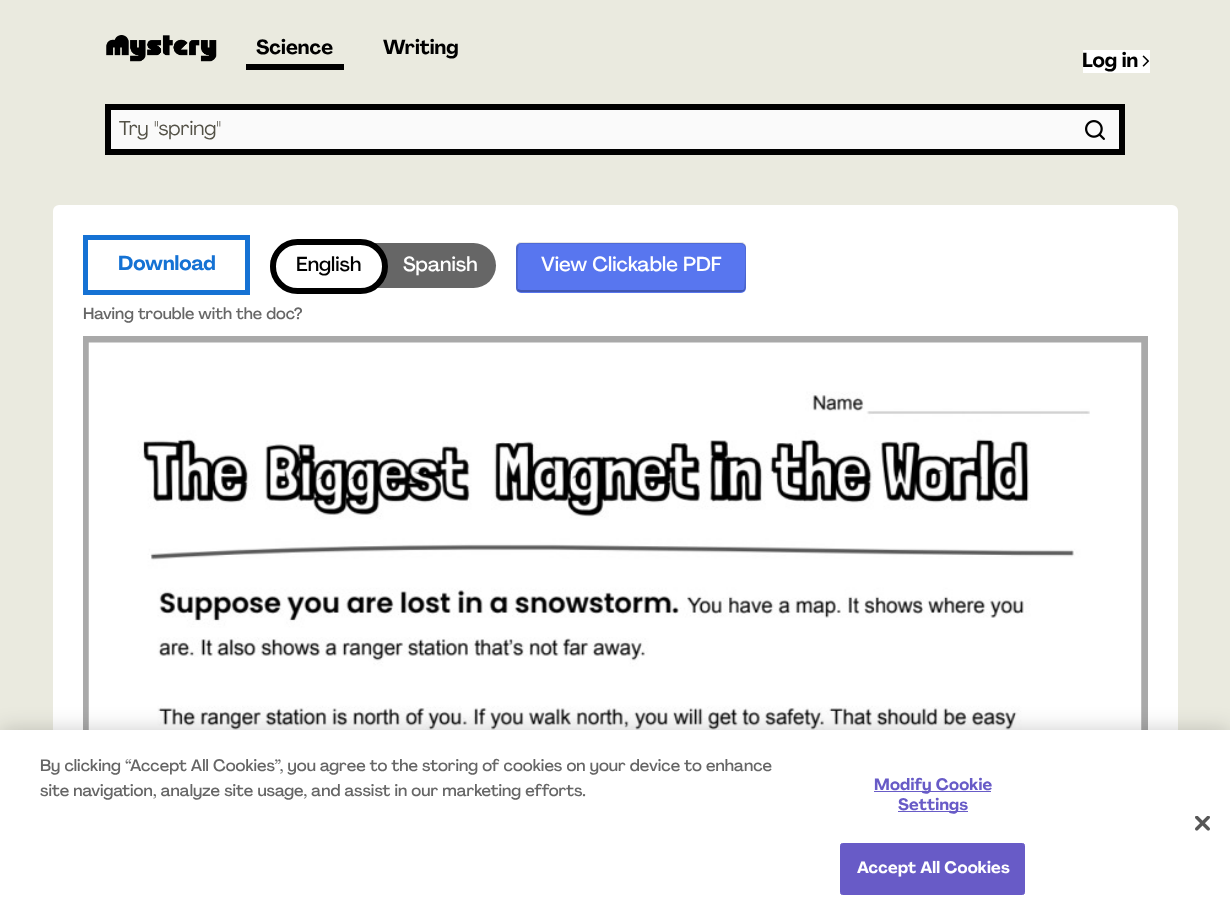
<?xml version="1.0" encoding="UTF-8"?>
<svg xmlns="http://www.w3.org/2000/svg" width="1230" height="920">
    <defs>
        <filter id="blur1" x="-50%" y="-200%" width="200%" height="500%"><feGaussianBlur stdDeviation="11"/></filter>
    </defs>
    <rect width="100%" height="100%" fill="#EAEADF"/>
    <image x="106" y="35" width="111" height="27" href="img_01.png"/>
    <rect x="246" y="64" width="98" height="6" fill="#000000"/>
    <text x="256" y="54" font-family="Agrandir" font-size="20" font-weight="700" fill="#000000">Science</text>
    <text x="383" y="54" font-family="Agrandir" font-size="20" font-weight="700" fill="#000000">Writing</text>
    <rect x="1083" y="50" width="67" height="23" fill="#FFFFFF"/>
    <text x="1082" y="67" font-family="Agrandir" font-size="20" font-weight="700" fill="#000000">Log in</text>
    <image x="1142" y="55" width="8" height="12" href="img_02.png"/>
    <rect x="108" y="107" width="1014" height="45" fill="#FAFAFA" stroke="#000000" stroke-width="6"/>
    <text x="119" y="135" font-family="Agrandir" font-size="20" fill="#535146">Try "spring"</text>
    <image x="1085" y="120" width="20" height="20" href="img_03.png"/>
    <rect x="53" y="205" width="1125" height="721" rx="6" fill="#FFFFFF"/>
    <rect x="85.5" y="237.5" width="162" height="55" fill="none" stroke="#1572D4" stroke-width="5"/>
    <text x="118" y="270" font-family="Agrandir" font-size="20" font-weight="700" fill="#1572D4">Download</text>
    <rect x="270" y="243" width="226" height="45" rx="22.5" fill="#666666"/>
    <rect x="273" y="242" width="112" height="49" rx="24.5" fill="#FFFFFF" stroke="#000000" stroke-width="6"/>
    <text x="296" y="271" font-family="Agrandir" font-size="20" font-weight="500" fill="#000000">English</text>
    <text x="403" y="271" font-family="Agrandir" font-size="20" font-weight="500" fill="#FFFFFF">Spanish</text>
    <rect x="516" y="243" width="230" height="50" rx="5" fill="#5876EF"/>
    <path d="M 521 244 L 519 245 L 517 244 L 519 242 H 743 L 745 244 L 744 245 L 741 244 Z" fill="#000000" fill-opacity="0.1"/>
    <path d="M 745 244 C 746 245 746 247 746 248 V 288 L 745 290 L 744 289 C 745 288 746 250 745 247 L 744 245 Z" fill="#000000" fill-opacity="0.15"/>
    <path d="M 745 290 C 744 291 743 292 741 292 H 520 L 517 291 L 518 289 C 519 289 519 290 521 290 H 741 C 742 290 744 290 744 289 Z" fill="#000000" fill-opacity="0.25"/>
    <path d="M 516 246 L 517 244 L 519 245 C 517 247 518 287 518 289 L 517 291 L 516 289 Z" fill="#000000" fill-opacity="0.15"/>
    <text x="541" y="271" font-family="Agrandir" font-size="20" font-weight="500" fill="#FFFFFF">View Clickable PDF</text>
    <text x="83" y="319" font-family="Agrandir" font-size="16" font-weight="500" fill="#666666">Having trouble with the doc?</text>
    <rect x="83" y="336" width="1065" height="394" fill="#A9A9A9"/>
    <image x="88" y="342" width="1054" height="388" href="img_04.png"/>
    <rect x="0" y="730" width="1230" height="190" fill="#000000" fill-opacity="0.2" filter="url(#blur1)"/>
    <rect x="0" y="730" width="1230" height="190" fill="#FFFFFF"/>
    <text font-family="Agrandir" font-size="16.25" font-weight="500" fill="#666666">
        <tspan x="40" y="771">By clicking “Accept All Cookies”, you agree to the storing of cookies on your device to enhance</tspan>
        <tspan x="40" y="796">site navigation, analyze site usage, and assist in our marketing efforts.</tspan>
    </text>
    <rect x="874" y="791" width="117" height="1" fill="#685BC7"/>
    <text x="874" y="790" font-family="Agrandir" font-size="16.25" font-weight="700" letter-spacing="0.2" fill="#685BC7">Modify Cookie</text>
    <rect x="898" y="811" width="70" height="1" fill="#685BC7"/>
    <text x="898" y="810" font-family="Agrandir" font-size="16.25" font-weight="700" letter-spacing="0.2" fill="#685BC7">Settings</text>
    <rect x="840.5" y="843.5" width="184" height="51" rx="2" fill="#685BC7" stroke="#685BC7"/>
    <text x="857" y="873" font-family="Agrandir" font-size="16.25" font-weight="700" letter-spacing="0.2" fill="#FFFFFF">Accept All Cookies</text>
    <image x="1195" y="816" width="15" height="15" href="img_05.png"/>
</svg>
